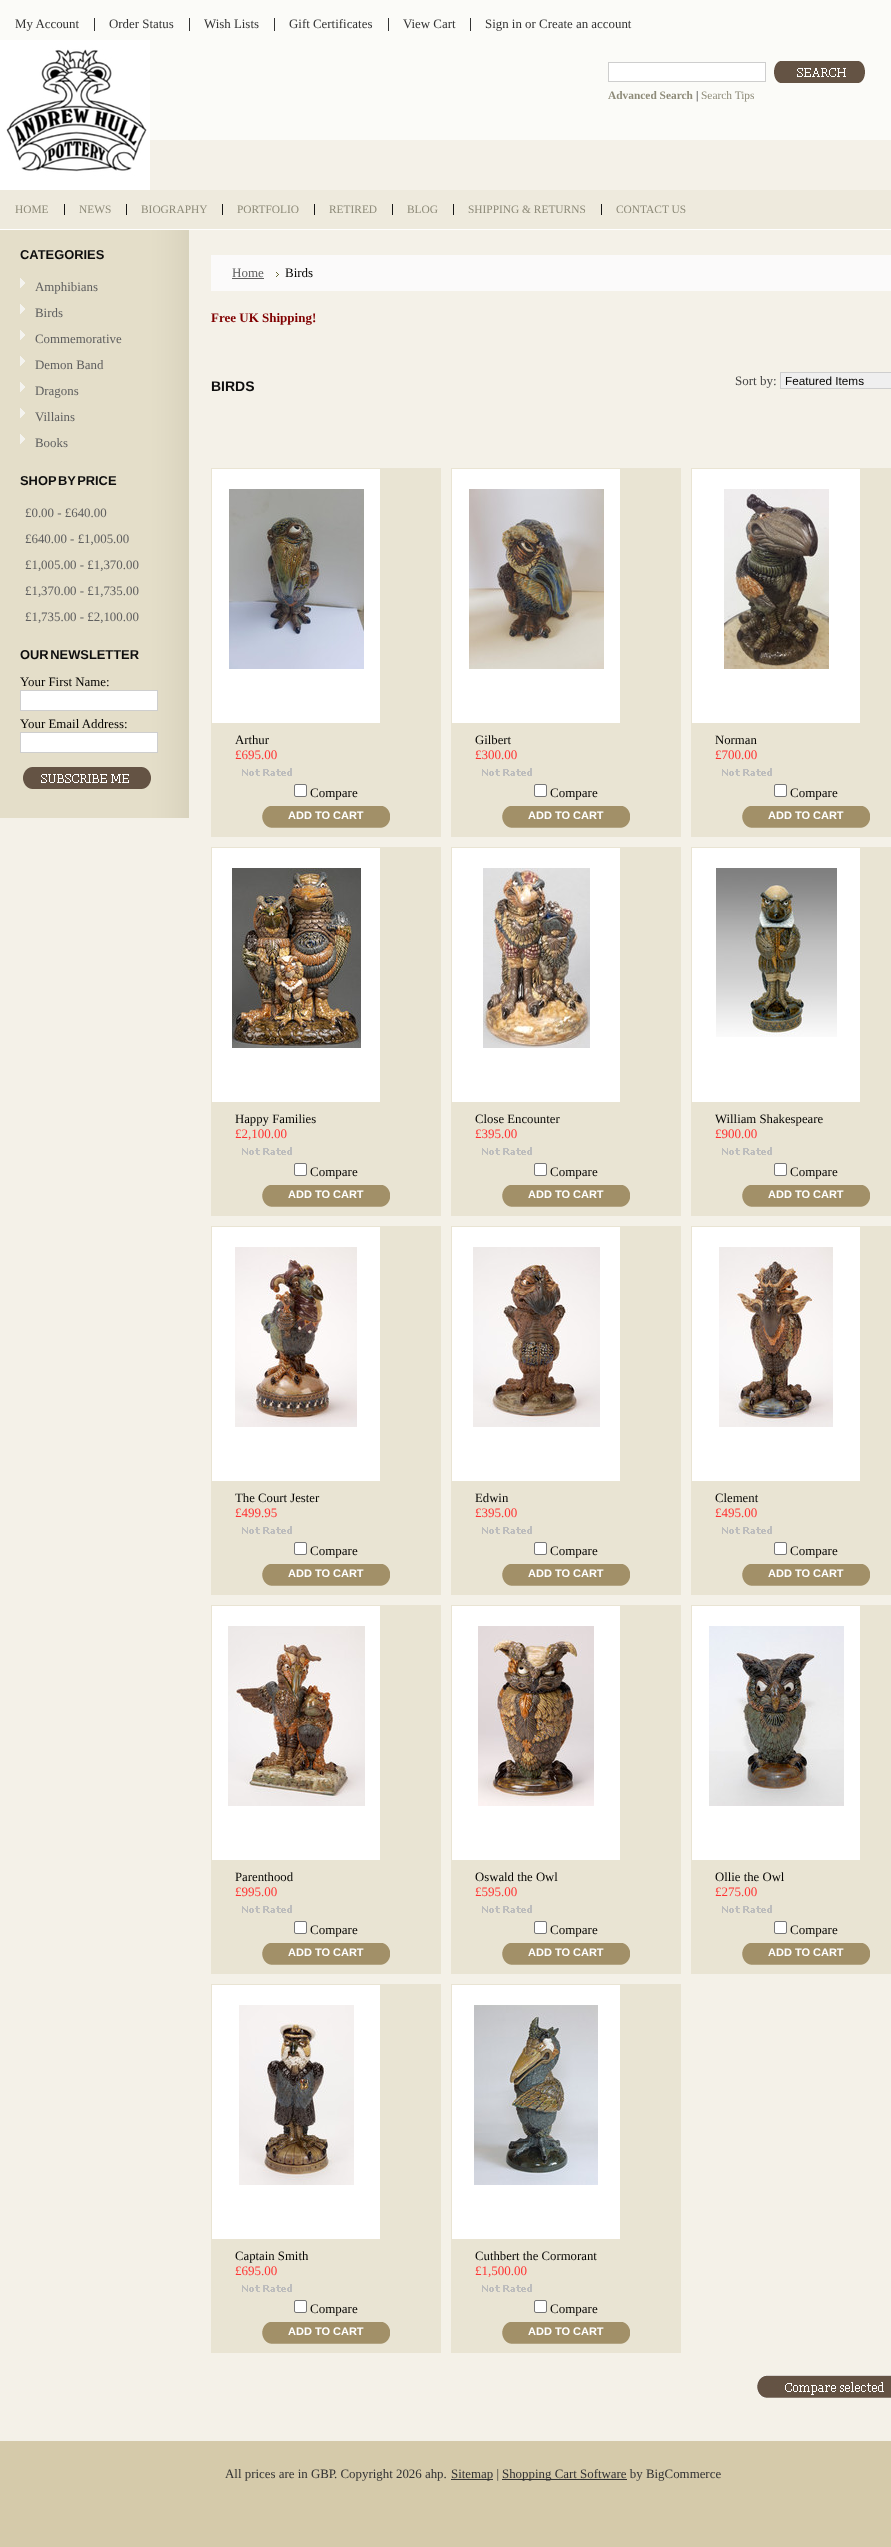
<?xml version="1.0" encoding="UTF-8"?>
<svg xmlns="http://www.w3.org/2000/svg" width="891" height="2547">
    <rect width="100%" height="100%" fill="#D5CAAA"/>
    <rect x="0" y="0" width="891" height="40" fill="#FBFBF8"/>
    <text x="15" y="28" font-family="Liberation Serif" font-size="12.9" fill="#333333">My Account</text>
    <rect x="94" y="18" width="1" height="13" fill="#333333"/>
    <text x="109" y="28" font-family="Liberation Serif" font-size="12.9" fill="#333333">Order Status</text>
    <rect x="189" y="18" width="1" height="13" fill="#333333"/>
    <text x="204" y="28" font-family="Liberation Serif" font-size="12.9" fill="#333333">Wish Lists</text>
    <rect x="274" y="18" width="1" height="13" fill="#333333"/>
    <text x="289" y="28" font-family="Liberation Serif" font-size="12.9" fill="#333333">Gift Certificates</text>
    <rect x="388" y="18" width="1" height="13" fill="#333333"/>
    <text x="403" y="28" font-family="Liberation Serif" font-size="12.9" fill="#333333">View Cart</text>
    <rect x="470" y="18" width="1" height="13" fill="#333333"/>
    <text x="485" y="28" font-family="Liberation Serif" font-size="12.9" fill="#333333">Sign in or Create an account</text>
    <rect x="0" y="140" width="891" height="2301" fill="#F4F1E8"/>
    <rect x="150" y="40" width="741" height="100" fill="#FBFBF8"/>
    <image x="0" y="40" width="150" height="150" href="img_01.png"/>
    <rect x="608.5" y="62.5" width="157" height="19" fill="#FFFFFF" stroke="#CECECE"/>
    <image x="774" y="61" width="91" height="22" href="img_02.png"/>
    <text x="608" y="99" font-family="Liberation Serif" font-size="11.4" font-weight="700" fill="#8E8B79">Advanced Search</text>
    <text x="696" y="99" font-family="Liberation Serif" font-size="11.4" fill="#050402">|</text>
    <text x="701" y="99" font-family="Liberation Serif" font-size="11.4" fill="#8E8B79">Search Tips</text>
    <rect x="0" y="190" width="891" height="39" fill="#EEEADD"/>
    <rect x="0" y="229" width="891" height="1" fill="#FFFFFF"/>
    <text x="15" y="213" font-family="Liberation Serif" font-size="11.4" fill="#8E8B79">HOME</text>
    <rect x="64" y="204" width="1" height="11" fill="#171717"/>
    <text x="79" y="213" font-family="Liberation Serif" font-size="11.4" fill="#8E8B79">NEWS</text>
    <rect x="126" y="204" width="1" height="11" fill="#171717"/>
    <text x="141" y="213" font-family="Liberation Serif" font-size="11.4" fill="#8E8B79">BIOGRAPHY</text>
    <rect x="222" y="204" width="1" height="11" fill="#171717"/>
    <text x="237" y="213" font-family="Liberation Serif" font-size="11.4" fill="#8E8B79">PORTFOLIO</text>
    <rect x="314" y="204" width="1" height="11" fill="#171717"/>
    <text x="329" y="213" font-family="Liberation Serif" font-size="11.4" fill="#8E8B79">RETIRED</text>
    <rect x="392" y="204" width="1" height="11" fill="#171717"/>
    <text x="407" y="213" font-family="Liberation Serif" font-size="11.4" fill="#8E8B79">BLOG</text>
    <rect x="453" y="204" width="1" height="11" fill="#171717"/>
    <text x="468" y="213" font-family="Liberation Serif" font-size="11.4" fill="#8E8B79">SHIPPING &amp; RETURNS</text>
    <rect x="601" y="204" width="1" height="11" fill="#171717"/>
    <text x="616" y="213" font-family="Liberation Serif" font-size="11.4" fill="#8E8B79">CONTACT US</text>
    <image x="0" y="230" width="189" height="588" href="img_03.png"/>
    <text x="20" y="259" font-family="Liberation Sans" font-size="12.9" font-weight="700" fill="#0E0E0E">CATEGORIES</text>
    <image x="20" y="278" width="5" height="10" href="img_04.png"/>
    <text x="35" y="291" font-family="Liberation Serif" font-size="12.9" fill="#606060">Amphibians</text>
    <image x="20" y="304" width="5" height="10" href="img_04.png"/>
    <text x="35" y="317" font-family="Liberation Serif" font-size="12.9" fill="#606060">Birds</text>
    <image x="20" y="330" width="5" height="10" href="img_04.png"/>
    <text x="35" y="343" font-family="Liberation Serif" font-size="12.9" fill="#606060">Commemorative</text>
    <image x="20" y="356" width="5" height="10" href="img_04.png"/>
    <text x="35" y="369" font-family="Liberation Serif" font-size="12.9" fill="#606060">Demon Band</text>
    <image x="20" y="382" width="5" height="10" href="img_04.png"/>
    <text x="35" y="395" font-family="Liberation Serif" font-size="12.9" fill="#606060">Dragons</text>
    <image x="20" y="408" width="5" height="10" href="img_04.png"/>
    <text x="35" y="421" font-family="Liberation Serif" font-size="12.9" fill="#606060">Villains</text>
    <image x="20" y="434" width="5" height="10" href="img_04.png"/>
    <text x="35" y="447" font-family="Liberation Serif" font-size="12.9" fill="#606060">Books</text>
    <text x="20" y="485" word-spacing="-2" font-family="Liberation Sans" font-size="12.9" font-weight="700" fill="#0E0E0E">SHOP BY PRICE</text>
    <text x="25" y="517" font-family="Liberation Serif" font-size="12.9" fill="#606060">£0.00 - £640.00</text>
    <text x="25" y="543" font-family="Liberation Serif" font-size="12.9" fill="#606060">£640.00 - £1,005.00</text>
    <text x="25" y="569" font-family="Liberation Serif" font-size="12.9" fill="#606060">£1,005.00 - £1,370.00</text>
    <text x="25" y="595" font-family="Liberation Serif" font-size="12.9" fill="#606060">£1,370.00 - £1,735.00</text>
    <text x="25" y="621" font-family="Liberation Serif" font-size="12.9" fill="#606060">£1,735.00 - £2,100.00</text>
    <text x="20" y="659" word-spacing="-2" font-family="Liberation Sans" font-size="12.9" font-weight="700" fill="#0E0E0E">OUR NEWSLETTER</text>
    <text x="20" y="686" font-family="Liberation Serif" font-size="12.9" fill="#050402">Your First Name:</text>
    <rect x="20.5" y="690.5" width="137" height="20" fill="#FFFFFF" stroke="#CECECE"/>
    <text x="20" y="728" font-family="Liberation Serif" font-size="12.9" fill="#050402">Your Email Address:</text>
    <rect x="20.5" y="732.5" width="137" height="20" fill="#FFFFFF" stroke="#CECECE"/>
    <image x="23" y="767" width="128" height="22" href="img_05.png"/>
    <rect x="211" y="255" width="680" height="36" fill="#FBFAFA"/>
    <text x="232" y="277" font-family="Liberation Serif" font-size="13" fill="#606060">Home</text>
    <rect x="232" y="278" width="32" height="1" fill="#606060"/>
    <image x="276" y="272" width="3" height="5" href="img_06.png"/>
    <text x="285" y="277" font-family="Liberation Serif" font-size="13" fill="#050402">Birds</text>
    <text x="211" y="322" font-family="Liberation Serif" font-size="13" font-weight="700" fill="#800000">Free UK Shipping!</text>
    <text x="211" y="391" font-family="Liberation Sans" font-size="14" font-weight="700" fill="#0E0E0E">BIRDS</text>
    <text x="735" y="385" font-family="Liberation Serif" font-size="13" fill="#444444">Sort by:</text>
    <rect x="780.5" y="372.5" width="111" height="16" fill="#EFEFEF" stroke="#CECECE"/>
    <text x="785" y="385" font-family="Liberation Sans" font-size="11.75" fill="#050402">Featured Items</text>
    <rect x="211" y="468" width="230" height="369" fill="#E9E4D3"/>
    <rect x="212" y="469" width="168" height="254" fill="#FFFFFF"/>
    <image x="229" y="489" width="135" height="180" href="img_07.png"/>
    <text x="235" y="744" font-family="Liberation Serif" font-size="12.75" fill="#050402">Arthur</text>
    <text x="235" y="759" font-family="Liberation Serif" font-size="13" fill="#FF3333">£695.00</text>
    <image x="242" y="768" width="50" height="8" href="img_08.png"/>
    <rect x="294.5" y="784.5" width="12" height="12" rx="1.5" fill="#FFFFFF" stroke="#767676"/>
    <text x="310" y="797" font-family="Liberation Serif" font-size="13" fill="#050402">Compare</text>
    <image x="262" y="806" width="128" height="22" href="img_09.png"/>
    <text x="288" y="819" font-family="Liberation Sans" font-size="11" font-weight="700" fill="#FFFFFF">ADD TO CART</text>
    <rect x="451" y="468" width="230" height="369" fill="#E9E4D3"/>
    <rect x="452" y="469" width="168" height="254" fill="#FFFFFF"/>
    <image x="469" y="489" width="135" height="180" href="img_10.png"/>
    <text x="475" y="744" font-family="Liberation Serif" font-size="12.75" fill="#050402">Gilbert</text>
    <text x="475" y="759" font-family="Liberation Serif" font-size="13" fill="#FF3333">£300.00</text>
    <image x="482" y="768" width="50" height="8" href="img_08.png"/>
    <rect x="534.5" y="784.5" width="12" height="12" rx="1.5" fill="#FFFFFF" stroke="#767676"/>
    <text x="550" y="797" font-family="Liberation Serif" font-size="13" fill="#050402">Compare</text>
    <image x="502" y="806" width="128" height="22" href="img_09.png"/>
    <text x="528" y="819" font-family="Liberation Sans" font-size="11" font-weight="700" fill="#FFFFFF">ADD TO CART</text>
    <rect x="691" y="468" width="200" height="369" fill="#E9E4D3"/>
    <rect x="692" y="469" width="168" height="254" fill="#FFFFFF"/>
    <image x="724" y="489" width="105" height="180" href="img_11.png"/>
    <text x="715" y="744" font-family="Liberation Serif" font-size="12.75" fill="#050402">Norman</text>
    <text x="715" y="759" font-family="Liberation Serif" font-size="13" fill="#FF3333">£700.00</text>
    <image x="722" y="768" width="50" height="8" href="img_08.png"/>
    <rect x="774.5" y="784.5" width="12" height="12" rx="1.5" fill="#FFFFFF" stroke="#767676"/>
    <text x="790" y="797" font-family="Liberation Serif" font-size="13" fill="#050402">Compare</text>
    <image x="742" y="806" width="128" height="22" href="img_09.png"/>
    <text x="768" y="819" font-family="Liberation Sans" font-size="11" font-weight="700" fill="#FFFFFF">ADD TO CART</text>
    <rect x="211" y="847" width="230" height="369" fill="#E9E4D3"/>
    <rect x="212" y="848" width="168" height="254" fill="#FFFFFF"/>
    <image x="232" y="868" width="129" height="180" href="img_12.png"/>
    <text x="235" y="1123" font-family="Liberation Serif" font-size="12.75" fill="#050402">Happy Families</text>
    <text x="235" y="1138" font-family="Liberation Serif" font-size="13" fill="#FF3333">£2,100.00</text>
    <image x="242" y="1147" width="50" height="8" href="img_08.png"/>
    <rect x="294.5" y="1163.5" width="12" height="12" rx="1.5" fill="#FFFFFF" stroke="#767676"/>
    <text x="310" y="1176" font-family="Liberation Serif" font-size="13" fill="#050402">Compare</text>
    <image x="262" y="1185" width="128" height="22" href="img_09.png"/>
    <text x="288" y="1198" font-family="Liberation Sans" font-size="11" font-weight="700" fill="#FFFFFF">ADD TO CART</text>
    <rect x="451" y="847" width="230" height="369" fill="#E9E4D3"/>
    <rect x="452" y="848" width="168" height="254" fill="#FFFFFF"/>
    <image x="483" y="868" width="107" height="180" href="img_13.png"/>
    <text x="475" y="1123" font-family="Liberation Serif" font-size="12.75" fill="#050402">Close Encounter</text>
    <text x="475" y="1138" font-family="Liberation Serif" font-size="13" fill="#FF3333">£395.00</text>
    <image x="482" y="1147" width="50" height="8" href="img_08.png"/>
    <rect x="534.5" y="1163.5" width="12" height="12" rx="1.5" fill="#FFFFFF" stroke="#767676"/>
    <text x="550" y="1176" font-family="Liberation Serif" font-size="13" fill="#050402">Compare</text>
    <image x="502" y="1185" width="128" height="22" href="img_09.png"/>
    <text x="528" y="1198" font-family="Liberation Sans" font-size="11" font-weight="700" fill="#FFFFFF">ADD TO CART</text>
    <rect x="691" y="847" width="200" height="369" fill="#E9E4D3"/>
    <rect x="692" y="848" width="168" height="254" fill="#FFFFFF"/>
    <image x="716" y="868" width="121" height="169" href="img_14.png"/>
    <text x="715" y="1123" font-family="Liberation Serif" font-size="12.75" fill="#050402">William Shakespeare</text>
    <text x="715" y="1138" font-family="Liberation Serif" font-size="13" fill="#FF3333">£900.00</text>
    <image x="722" y="1147" width="50" height="8" href="img_08.png"/>
    <rect x="774.5" y="1163.5" width="12" height="12" rx="1.5" fill="#FFFFFF" stroke="#767676"/>
    <text x="790" y="1176" font-family="Liberation Serif" font-size="13" fill="#050402">Compare</text>
    <image x="742" y="1185" width="128" height="22" href="img_09.png"/>
    <text x="768" y="1198" font-family="Liberation Sans" font-size="11" font-weight="700" fill="#FFFFFF">ADD TO CART</text>
    <rect x="211" y="1226" width="230" height="369" fill="#E9E4D3"/>
    <rect x="212" y="1227" width="168" height="254" fill="#FFFFFF"/>
    <image x="235" y="1247" width="122" height="180" href="img_15.png"/>
    <text x="235" y="1502" font-family="Liberation Serif" font-size="12.75" fill="#050402">The Court Jester</text>
    <text x="235" y="1517" font-family="Liberation Serif" font-size="13" fill="#FF3333">£499.95</text>
    <image x="242" y="1526" width="50" height="8" href="img_08.png"/>
    <rect x="294.5" y="1542.5" width="12" height="12" rx="1.5" fill="#FFFFFF" stroke="#767676"/>
    <text x="310" y="1555" font-family="Liberation Serif" font-size="13" fill="#050402">Compare</text>
    <image x="262" y="1564" width="128" height="22" href="img_09.png"/>
    <text x="288" y="1577" font-family="Liberation Sans" font-size="11" font-weight="700" fill="#FFFFFF">ADD TO CART</text>
    <rect x="451" y="1226" width="230" height="369" fill="#E9E4D3"/>
    <rect x="452" y="1227" width="168" height="254" fill="#FFFFFF"/>
    <image x="473" y="1247" width="127" height="180" href="img_16.png"/>
    <text x="475" y="1502" font-family="Liberation Serif" font-size="12.75" fill="#050402">Edwin</text>
    <text x="475" y="1517" font-family="Liberation Serif" font-size="13" fill="#FF3333">£395.00</text>
    <image x="482" y="1526" width="50" height="8" href="img_08.png"/>
    <rect x="534.5" y="1542.5" width="12" height="12" rx="1.5" fill="#FFFFFF" stroke="#767676"/>
    <text x="550" y="1555" font-family="Liberation Serif" font-size="13" fill="#050402">Compare</text>
    <image x="502" y="1564" width="128" height="22" href="img_09.png"/>
    <text x="528" y="1577" font-family="Liberation Sans" font-size="11" font-weight="700" fill="#FFFFFF">ADD TO CART</text>
    <rect x="691" y="1226" width="200" height="369" fill="#E9E4D3"/>
    <rect x="692" y="1227" width="168" height="254" fill="#FFFFFF"/>
    <image x="719" y="1247" width="114" height="180" href="img_17.png"/>
    <text x="715" y="1502" font-family="Liberation Serif" font-size="12.75" fill="#050402">Clement</text>
    <text x="715" y="1517" font-family="Liberation Serif" font-size="13" fill="#FF3333">£495.00</text>
    <image x="722" y="1526" width="50" height="8" href="img_08.png"/>
    <rect x="774.5" y="1542.5" width="12" height="12" rx="1.5" fill="#FFFFFF" stroke="#767676"/>
    <text x="790" y="1555" font-family="Liberation Serif" font-size="13" fill="#050402">Compare</text>
    <image x="742" y="1564" width="128" height="22" href="img_09.png"/>
    <text x="768" y="1577" font-family="Liberation Sans" font-size="11" font-weight="700" fill="#FFFFFF">ADD TO CART</text>
    <rect x="211" y="1605" width="230" height="369" fill="#E9E4D3"/>
    <rect x="212" y="1606" width="168" height="254" fill="#FFFFFF"/>
    <image x="228" y="1626" width="137" height="180" href="img_18.png"/>
    <text x="235" y="1881" font-family="Liberation Serif" font-size="12.75" fill="#050402">Parenthood</text>
    <text x="235" y="1896" font-family="Liberation Serif" font-size="13" fill="#FF3333">£995.00</text>
    <image x="242" y="1905" width="50" height="8" href="img_08.png"/>
    <rect x="294.5" y="1921.5" width="12" height="12" rx="1.5" fill="#FFFFFF" stroke="#767676"/>
    <text x="310" y="1934" font-family="Liberation Serif" font-size="13" fill="#050402">Compare</text>
    <image x="262" y="1943" width="128" height="22" href="img_09.png"/>
    <text x="288" y="1956" font-family="Liberation Sans" font-size="11" font-weight="700" fill="#FFFFFF">ADD TO CART</text>
    <rect x="451" y="1605" width="230" height="369" fill="#E9E4D3"/>
    <rect x="452" y="1606" width="168" height="254" fill="#FFFFFF"/>
    <image x="478" y="1626" width="116" height="180" href="img_19.png"/>
    <text x="475" y="1881" font-family="Liberation Serif" font-size="12.75" fill="#050402">Oswald the Owl</text>
    <text x="475" y="1896" font-family="Liberation Serif" font-size="13" fill="#FF3333">£595.00</text>
    <image x="482" y="1905" width="50" height="8" href="img_08.png"/>
    <rect x="534.5" y="1921.5" width="12" height="12" rx="1.5" fill="#FFFFFF" stroke="#767676"/>
    <text x="550" y="1934" font-family="Liberation Serif" font-size="13" fill="#050402">Compare</text>
    <image x="502" y="1943" width="128" height="22" href="img_09.png"/>
    <text x="528" y="1956" font-family="Liberation Sans" font-size="11" font-weight="700" fill="#FFFFFF">ADD TO CART</text>
    <rect x="691" y="1605" width="200" height="369" fill="#E9E4D3"/>
    <rect x="692" y="1606" width="168" height="254" fill="#FFFFFF"/>
    <image x="709" y="1626" width="135" height="180" href="img_20.png"/>
    <text x="715" y="1881" font-family="Liberation Serif" font-size="12.75" fill="#050402">Ollie the Owl</text>
    <text x="715" y="1896" font-family="Liberation Serif" font-size="13" fill="#FF3333">£275.00</text>
    <image x="722" y="1905" width="50" height="8" href="img_08.png"/>
    <rect x="774.5" y="1921.5" width="12" height="12" rx="1.5" fill="#FFFFFF" stroke="#767676"/>
    <text x="790" y="1934" font-family="Liberation Serif" font-size="13" fill="#050402">Compare</text>
    <image x="742" y="1943" width="128" height="22" href="img_09.png"/>
    <text x="768" y="1956" font-family="Liberation Sans" font-size="11" font-weight="700" fill="#FFFFFF">ADD TO CART</text>
    <rect x="211" y="1984" width="230" height="369" fill="#E9E4D3"/>
    <rect x="212" y="1985" width="168" height="254" fill="#FFFFFF"/>
    <image x="239" y="2005" width="115" height="180" href="img_21.png"/>
    <text x="235" y="2260" font-family="Liberation Serif" font-size="12.75" fill="#050402">Captain Smith</text>
    <text x="235" y="2275" font-family="Liberation Serif" font-size="13" fill="#FF3333">£695.00</text>
    <image x="242" y="2284" width="50" height="8" href="img_08.png"/>
    <rect x="294.5" y="2300.5" width="12" height="12" rx="1.5" fill="#FFFFFF" stroke="#767676"/>
    <text x="310" y="2313" font-family="Liberation Serif" font-size="13" fill="#050402">Compare</text>
    <image x="262" y="2322" width="128" height="22" href="img_09.png"/>
    <text x="288" y="2335" font-family="Liberation Sans" font-size="11" font-weight="700" fill="#FFFFFF">ADD TO CART</text>
    <rect x="451" y="1984" width="230" height="369" fill="#E9E4D3"/>
    <rect x="452" y="1985" width="168" height="254" fill="#FFFFFF"/>
    <image x="474" y="2005" width="124" height="180" href="img_22.png"/>
    <text x="475" y="2260" font-family="Liberation Serif" font-size="12.75" fill="#050402">Cuthbert the Cormorant</text>
    <text x="475" y="2275" font-family="Liberation Serif" font-size="13" fill="#FF3333">£1,500.00</text>
    <image x="482" y="2284" width="50" height="8" href="img_08.png"/>
    <rect x="534.5" y="2300.5" width="12" height="12" rx="1.5" fill="#FFFFFF" stroke="#767676"/>
    <text x="550" y="2313" font-family="Liberation Serif" font-size="13" fill="#050402">Compare</text>
    <image x="502" y="2322" width="128" height="22" href="img_09.png"/>
    <text x="528" y="2335" font-family="Liberation Sans" font-size="11" font-weight="700" fill="#FFFFFF">ADD TO CART</text>
    <image x="757" y="2375" width="134" height="23" href="img_23.png"/>
    <text x="225" y="2478" font-family="Liberation Serif" font-size="12.9" fill="#333333">All prices are in GBP</text>
    <text x="334" y="2478" font-family="Liberation Serif" font-size="12.9" fill="#333333">. Copyright 2026 ahp.</text>
    <rect x="451" y="2479" width="42" height="1" fill="#333333"/>
    <text x="451" y="2478" font-family="Liberation Serif" font-size="12.9" fill="#333333">Sitemap |</text>
    <rect x="502" y="2479" width="125" height="1" fill="#333333"/>
    <text x="502" y="2478" font-family="Liberation Serif" font-size="12.9" fill="#333333">Shopping Cart Software by BigCommerce</text>
</svg>
